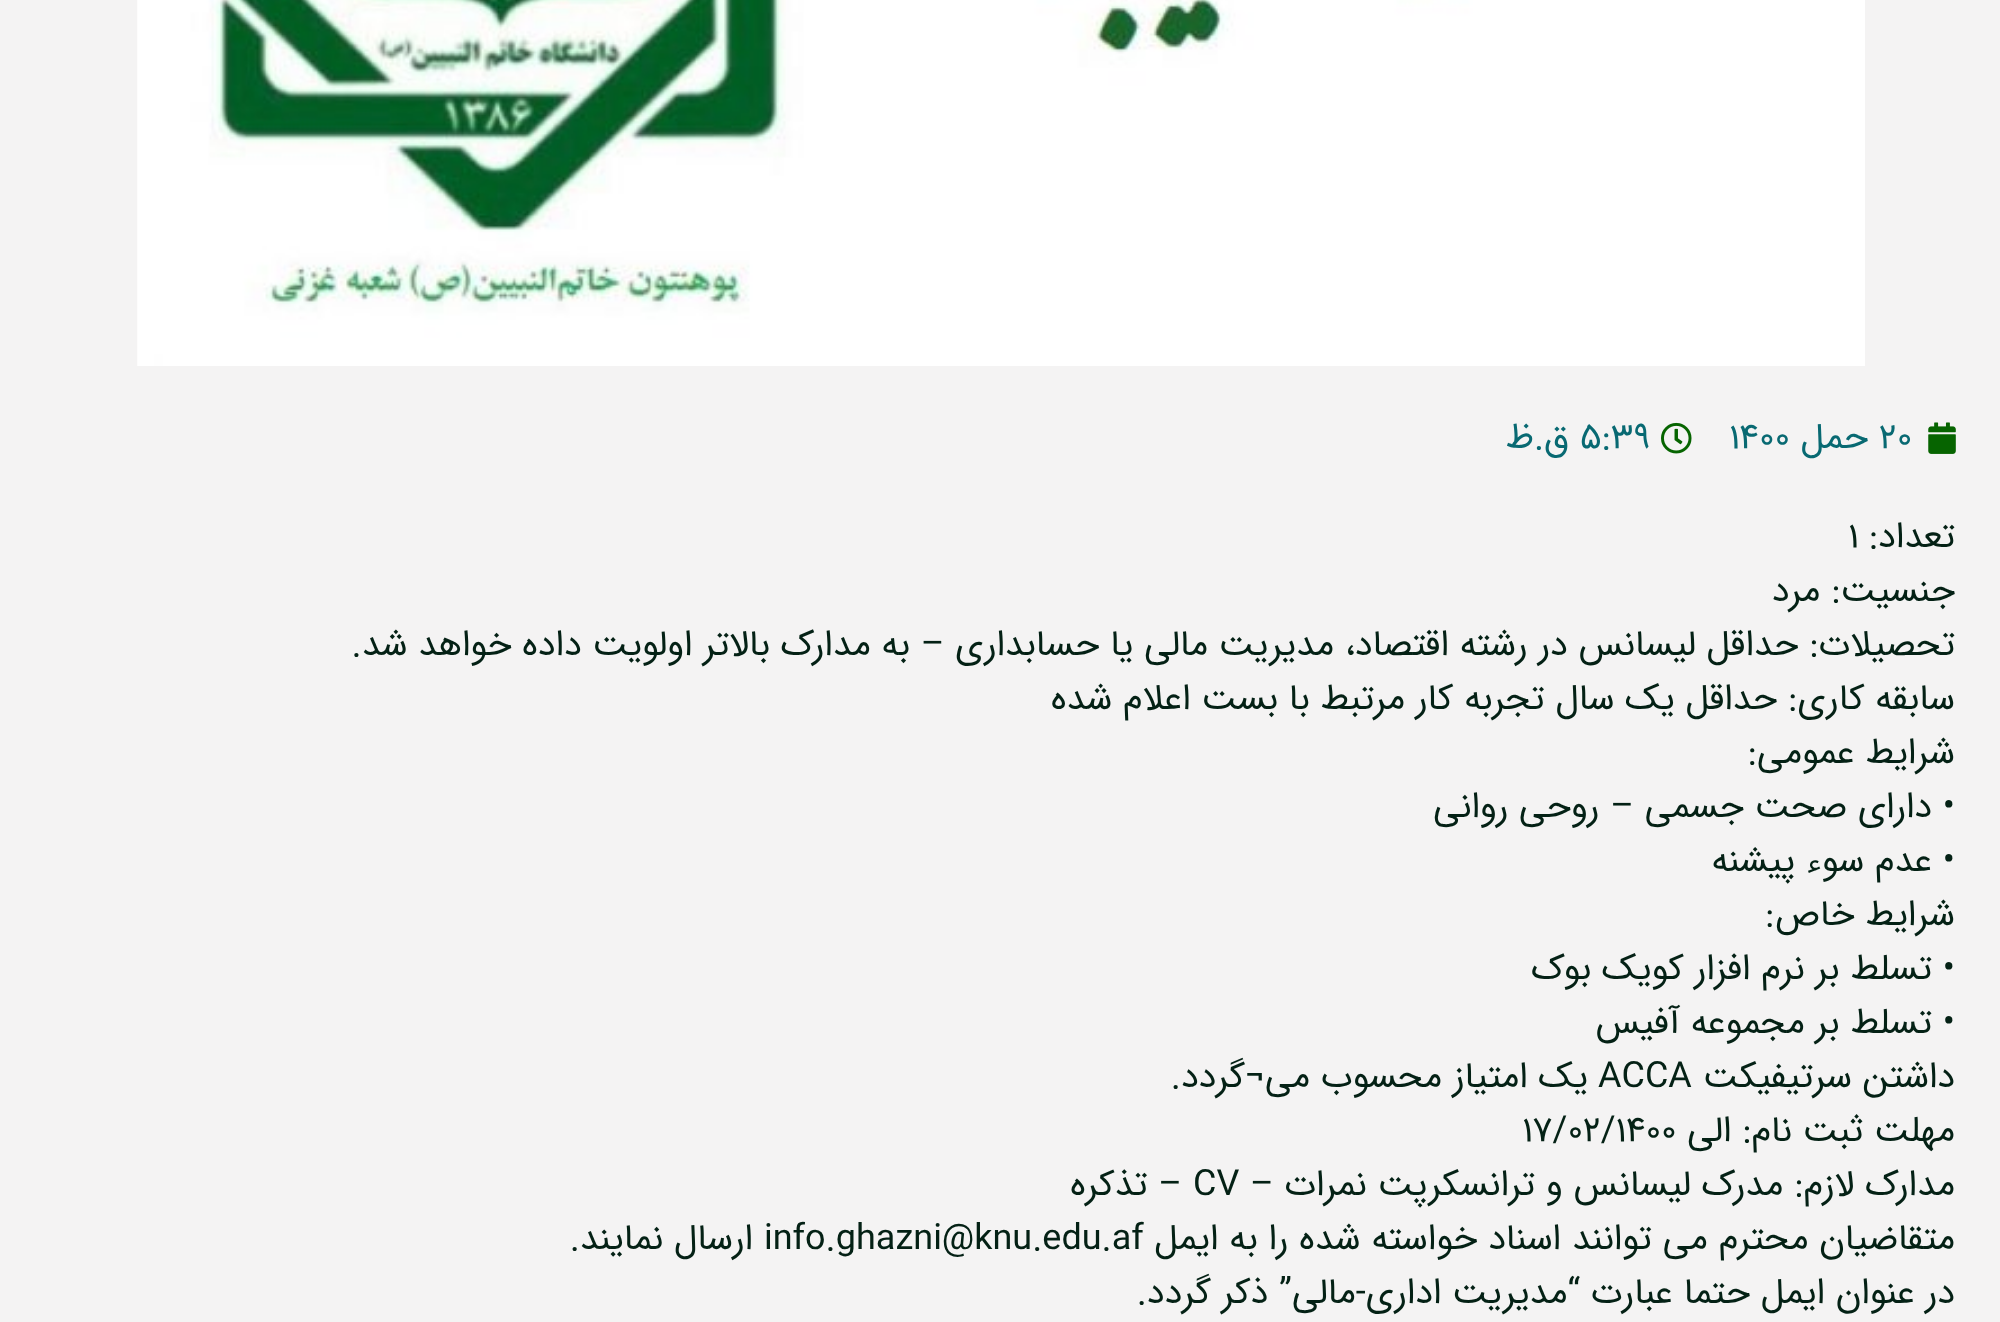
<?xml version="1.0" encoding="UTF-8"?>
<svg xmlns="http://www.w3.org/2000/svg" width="2000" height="1322">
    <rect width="100%" height="100%" fill="#F4F3F3"/>
    <image x="137" y="0" width="1728" height="366" href="img_01.png"/>
    <image x="1928" y="422" width="28" height="32" href="img_02.png"/>
    <text x="1879" y="448" font-family="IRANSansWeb" font-size="36" fill="#086972">۲۰</text>
    <text x="1868" y="448" font-family="IRANSansWeb" font-size="36" direction="rtl" fill="#086972">حمل</text>
    <text x="1729" y="448" font-family="IRANSansWeb" font-size="36" fill="#086972">۱۴۰۰</text>
    <image x="1661" y="422" width="31" height="32" href="img_03.png"/>
    <text x="1580" y="448" font-family="IRANSansWeb" font-size="36" fill="#086972">۵:۳۹</text>
    <text x="1569" y="448" font-family="IRANSansWeb" font-size="36" direction="rtl" fill="#086972">ق.ظ</text>
    <text x="1955" y="547" font-family="IRANSansWeb" font-size="36" direction="rtl" fill="#042115">تعداد:</text>
    <text x="1848" y="547" font-family="IRANSansWeb" font-size="36" fill="#042115">۱</text>
    <text font-family="IRANSansWeb" font-size="36" direction="rtl" fill="#042115">
        <tspan x="1955" y="601">جنسیت: مرد</tspan>
        <tspan x="1955" y="655">تحصیلات: حداقل لیسانس در رشته اقتصاد، مدیریت مالی یا حسابداری – به مدارک بالاتر اولویت داده خواهد شد.</tspan>
        <tspan x="1955" y="709">سابقه کاری: حداقل یک سال تجربه کار مرتبط با بست اعلام شده</tspan>
        <tspan x="1955" y="763">شرایط عمومی:</tspan>
        <tspan x="1955" y="817">• دارای صحت جسمی – روحی روانی</tspan>
        <tspan x="1955" y="871">• عدم سوء پیشنه</tspan>
        <tspan x="1955" y="925">شرایط خاص:</tspan>
        <tspan x="1955" y="979">• تسلط بر نرم افزار کویک بوک</tspan>
        <tspan x="1955" y="1033">• تسلط بر مجموعه آفیس</tspan>
        <tspan x="1955" y="1087">داشتن سرتیفیکت</tspan>
    </text>
    <text x="1598" y="1087" font-family="IRANSansWeb" font-size="36" fill="#042115">ACCA</text>
    <text x="1588" y="1087" font-family="IRANSansWeb" font-size="36" direction="rtl" fill="#042115">یک امتیاز محسوب می¬گردد.</text>
    <text x="1955" y="1141" font-family="IRANSansWeb" font-size="36" direction="rtl" fill="#042115">مهلت ثبت نام: الی</text>
    <text x="1522" y="1141" font-family="IRANSansWeb" font-size="36" fill="#042115">۱۷/۰۲/۱۴۰۰</text>
    <text x="1955" y="1195" font-family="IRANSansWeb" font-size="36" direction="rtl" fill="#042115">مدارک لازم: مدرک لیسانس و ترانسکرپت نمرات –</text>
    <text x="1193" y="1195" font-family="IRANSansWeb" font-size="36" fill="#042115">CV</text>
    <text x="1182" y="1195" font-family="IRANSansWeb" font-size="36" direction="rtl" fill="#042115">– تذکره</text>
    <text x="1955" y="1249" font-family="IRANSansWeb" font-size="36" direction="rtl" fill="#042115">متقاضیان محترم می توانند اسناد خواسته شده را به ایمل</text>
    <text x="764" y="1249" font-family="IRANSansWeb" font-size="36" fill="#042115">info.ghazni@knu.edu.af</text>
    <text x="753" y="1249" font-family="IRANSansWeb" font-size="36" direction="rtl" fill="#042115">ارسال نمایند.</text>
    <text x="1955" y="1303" font-family="IRANSansWeb" font-size="36" direction="rtl" fill="#042115">در عنوان ایمل حتما عبارت “مدیریت اداری-مالی” ذکر گردد.</text>
</svg>
